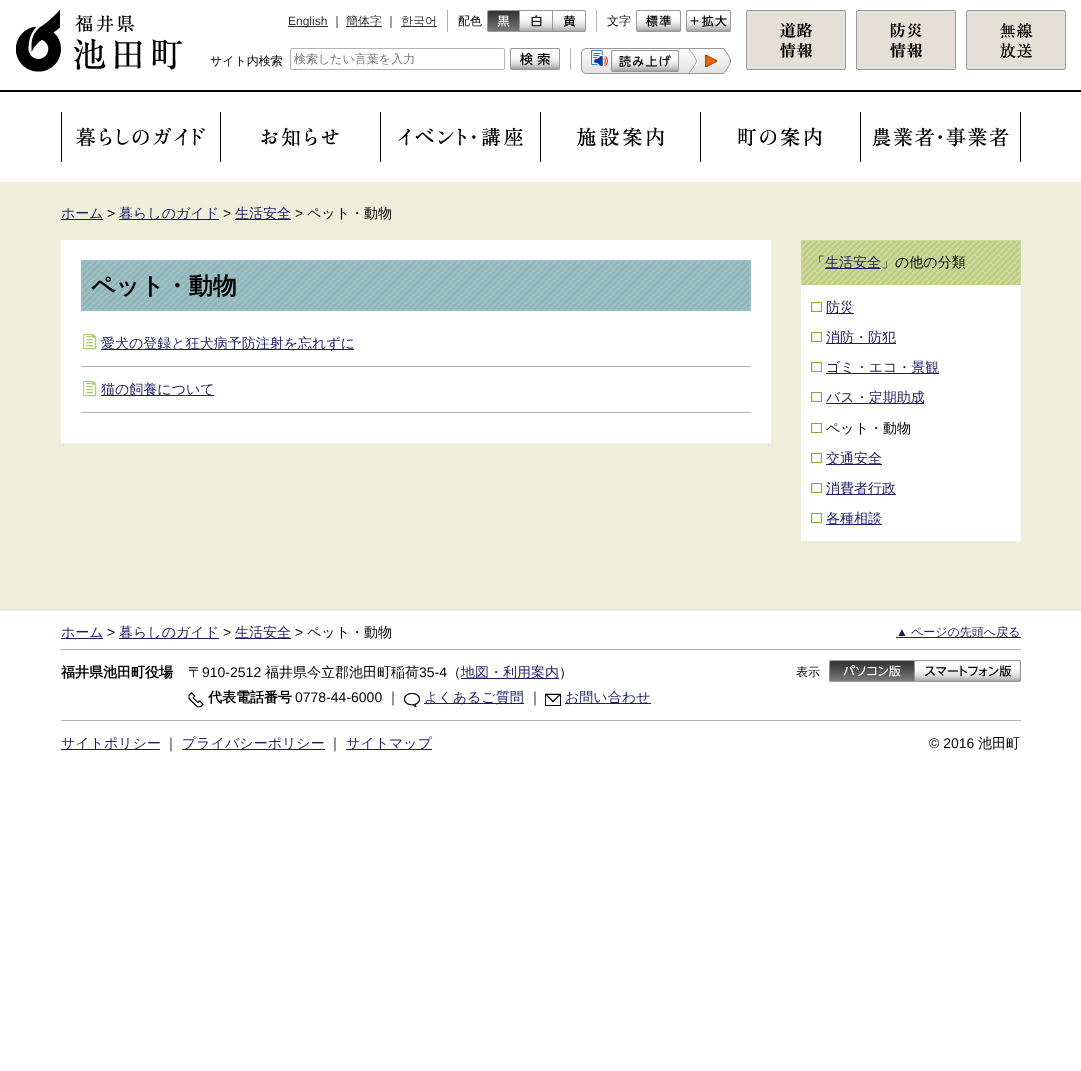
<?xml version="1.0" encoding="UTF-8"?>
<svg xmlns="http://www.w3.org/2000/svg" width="1081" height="1071">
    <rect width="100%" height="100%" fill="#FFFFFF"/>
    <rect x="0" y="90" width="1081" height="2" fill="#000000"/>
    <image x="16" y="10" width="166" height="62" href="img_01.png"/>
    <rect x="447" y="10" width="1" height="22" fill="#B3B3B3"/>
    <rect x="288" y="26" width="40" height="1" fill="#333333"/>
    <text x="288" y="25" font-family="Liberation Sans" font-size="12" fill="#333333">English</text>
    <text x="331" y="25" font-family="WenQuanYi Zen Hei" font-size="12" font-weight="500" fill="#000000">｜</text>
    <rect x="346" y="26" width="36" height="1" fill="#333333"/>
    <text x="346" y="25" font-family="WenQuanYi Zen Hei" font-size="12" font-weight="500" fill="#333333">簡体字</text>
    <text x="385" y="25" font-family="WenQuanYi Zen Hei" font-size="12" font-weight="500" fill="#000000">｜</text>
    <rect x="401" y="26" width="36" height="1" fill="#333333"/>
    <text x="401" y="25" font-family="WenQuanYi Zen Hei" font-size="12" font-weight="500" fill="#333333">한국어</text>
    <rect x="596" y="10" width="1" height="22" fill="#B3B3B3"/>
    <text x="458" y="25" font-family="WenQuanYi Zen Hei" font-size="12" font-weight="500" fill="#000000">配色</text>
    <image x="487" y="10" width="33" height="22" href="img_02.png"/>
    <image x="520" y="10" width="33" height="22" href="img_03.png"/>
    <image x="553" y="10" width="33" height="22" href="img_04.png"/>
    <text x="607" y="25" font-family="WenQuanYi Zen Hei" font-size="12" font-weight="500" fill="#000000">文字</text>
    <image x="636" y="10" width="45" height="22" href="img_05.png"/>
    <image x="686" y="10" width="45" height="22" href="img_06.png"/>
    <rect x="746.5" y="10.5" width="99" height="59" rx="1.5" fill="#E4E0D6" stroke="#999999"/>
    <image x="780" y="22" width="33" height="36" href="img_07.png"/>
    <rect x="856.5" y="10.5" width="99" height="59" rx="1.5" fill="#E4E0D6" stroke="#999999"/>
    <image x="890" y="23" width="32" height="35" href="img_08.png"/>
    <rect x="966.5" y="10.5" width="99" height="59" rx="1.5" fill="#E4E0D6" stroke="#999999"/>
    <image x="1000" y="23" width="33" height="35" href="img_09.png"/>
    <rect x="570" y="48" width="1" height="22" fill="#B3B3B3"/>
    <text x="210" y="65" font-family="WenQuanYi Zen Hei" font-size="12" font-weight="500" fill="#000000">サイト内検索</text>
    <rect x="290.5" y="48.5" width="214" height="21" rx="1.5" fill="none" stroke="#B3B3B3"/>
    <text x="294" y="63" font-family="WenQuanYi Zen Hei" font-size="12" font-weight="500" fill="#757575">検索したい言葉を入力</text>
    <image x="510" y="48" width="50" height="22" href="img_10.png"/>
    <image x="581" y="48" width="108" height="26" href="img_11.png"/>
    <image x="591" y="50" width="17" height="16" href="img_12.png"/>
    <image x="611" y="50" width="68" height="22" href="img_13.png"/>
    <image x="689" y="48" width="42" height="26" href="img_14.png"/>
    <rect x="220" y="112" width="1" height="50" fill="#000000"/>
    <rect x="61" y="112" width="1" height="50" fill="#000000"/>
    <image x="76" y="127" width="129" height="20" href="img_15.png"/>
    <rect x="380" y="112" width="1" height="50" fill="#000000"/>
    <image x="261" y="127" width="78" height="20" href="img_16.png"/>
    <rect x="540" y="112" width="1" height="50" fill="#000000"/>
    <image x="398" y="127" width="125" height="20" href="img_17.png"/>
    <rect x="700" y="112" width="1" height="50" fill="#000000"/>
    <image x="577" y="127" width="87" height="20" href="img_18.png"/>
    <rect x="860" y="112" width="1" height="50" fill="#000000"/>
    <image x="738" y="127" width="84" height="20" href="img_19.png"/>
    <rect x="1020" y="112" width="1" height="50" fill="#000000"/>
    <image x="872" y="127" width="137" height="20" href="img_20.png"/>
    <rect x="0" y="182" width="1081" height="429" fill="#EEEEDA"/>
    <rect x="61" y="219" width="42" height="1" fill="#1E1E64"/>
    <text x="61" y="218" font-family="WenQuanYi Zen Hei" font-size="14" font-weight="500" fill="#1E1E64">ホーム</text>
    <text x="107" y="218" font-family="Liberation Sans" font-size="14" fill="#000000">&gt;</text>
    <rect x="119" y="219" width="100" height="1" fill="#1E1E64"/>
    <text x="119" y="218" font-family="WenQuanYi Zen Hei" font-size="14" font-weight="500" fill="#1E1E64">暮らしのガイド</text>
    <text x="223" y="218" font-family="Liberation Sans" font-size="14" fill="#000000">&gt;</text>
    <rect x="235" y="219" width="56" height="1" fill="#1E1E64"/>
    <text x="235" y="218" font-family="WenQuanYi Zen Hei" font-size="14" font-weight="500" fill="#1E1E64">生活安全</text>
    <text x="295" y="218" font-family="Liberation Sans" font-size="14" fill="#000000">&gt;</text>
    <text x="307" y="218" font-family="WenQuanYi Zen Hei" font-size="14" font-weight="500" fill="#000000">ペット・動物</text>
    <rect x="61" y="240" width="710" height="203" fill="#FFFFFF"/>
    <rect x="82" y="261" width="668" height="49" fill="#98C0CA"/>
    <image x="82" y="261" width="668" height="49" href="img_21.png"/>
    <rect x="81.5" y="260.5" width="669" height="50" fill="none" stroke="#98C0CA"/>
    <text x="91" y="294" font-family="WenQuanYi Zen Hei" font-size="24" font-weight="700" fill="#000000">ペット・動物</text>
    <image x="83" y="334" width="14" height="16" href="img_22.png"/>
    <rect x="81" y="366" width="670" height="1" fill="#B3B3B3"/>
    <rect x="101" y="349" width="253" height="1" fill="#1E1E64"/>
    <text x="101" y="348" font-family="WenQuanYi Zen Hei" font-size="14" font-weight="500" fill="#1E1E64">愛犬の登録と狂犬病予防注射を忘れずに</text>
    <image x="83" y="381" width="14" height="16" href="img_22.png"/>
    <rect x="81" y="412" width="670" height="1" fill="#B3B3B3"/>
    <rect x="101" y="395" width="113" height="1" fill="#1E1E64"/>
    <text x="101" y="394" font-family="WenQuanYi Zen Hei" font-size="14" font-weight="500" fill="#1E1E64">猫の飼養について</text>
    <rect x="802" y="241" width="218" height="44" fill="#CAD998"/>
    <image x="802" y="241" width="218" height="44" href="img_23.png"/>
    <rect x="801" y="240" width="220" height="1" fill="#CAD998"/>
    <rect x="1020" y="240" width="1" height="45" fill="#CAD998"/>
    <rect x="801" y="240" width="1" height="45" fill="#CAD998"/>
    <text x="811" y="267" font-family="WenQuanYi Zen Hei" font-size="14" font-weight="500" fill="#000000">「</text>
    <rect x="825" y="268" width="56" height="1" fill="#1E1E64"/>
    <text x="825" y="267" font-family="WenQuanYi Zen Hei" font-size="14" font-weight="500" fill="#1E1E64">生活安全</text>
    <text x="881" y="267" font-family="WenQuanYi Zen Hei" font-size="14" font-weight="500" fill="#000000">」の他の分類</text>
    <rect x="801" y="285" width="220" height="256" fill="#FFFFFF"/>
    <image x="811" y="302" width="11" height="10" href="img_24.png"/>
    <rect x="826" y="313" width="28" height="1" fill="#1E1E64"/>
    <text x="826" y="312" font-family="WenQuanYi Zen Hei" font-size="14" font-weight="500" fill="#1E1E64">防災</text>
    <image x="811" y="332" width="11" height="10" href="img_24.png"/>
    <rect x="826" y="343" width="70" height="1" fill="#1E1E64"/>
    <text x="826" y="342" font-family="WenQuanYi Zen Hei" font-size="14" font-weight="500" fill="#1E1E64">消防・防犯</text>
    <image x="811" y="362" width="11" height="10" href="img_24.png"/>
    <rect x="826" y="373" width="113" height="1" fill="#1E1E64"/>
    <text x="826" y="372" font-family="WenQuanYi Zen Hei" font-size="14" font-weight="500" fill="#1E1E64">ゴミ・エコ・景観</text>
    <image x="811" y="392" width="11" height="10" href="img_24.png"/>
    <rect x="826" y="403" width="98" height="1" fill="#1E1E64"/>
    <text x="826" y="402" font-family="WenQuanYi Zen Hei" font-size="14" font-weight="500" fill="#1E1E64">バス・定期助成</text>
    <image x="811" y="423" width="11" height="10" href="img_24.png"/>
    <text x="826" y="433" font-family="WenQuanYi Zen Hei" font-size="14" font-weight="500" fill="#000000">ペット・動物</text>
    <image x="811" y="453" width="11" height="10" href="img_24.png"/>
    <rect x="826" y="464" width="56" height="1" fill="#1E1E64"/>
    <text x="826" y="463" font-family="WenQuanYi Zen Hei" font-size="14" font-weight="500" fill="#1E1E64">交通安全</text>
    <image x="811" y="483" width="11" height="10" href="img_24.png"/>
    <rect x="826" y="494" width="70" height="1" fill="#1E1E64"/>
    <text x="826" y="493" font-family="WenQuanYi Zen Hei" font-size="14" font-weight="500" fill="#1E1E64">消費者行政</text>
    <image x="811" y="513" width="11" height="10" href="img_24.png"/>
    <rect x="826" y="524" width="56" height="1" fill="#1E1E64"/>
    <text x="826" y="523" font-family="WenQuanYi Zen Hei" font-size="14" font-weight="500" fill="#1E1E64">各種相談</text>
    <rect x="61" y="638" width="42" height="1" fill="#1E1E64"/>
    <text x="61" y="637" font-family="WenQuanYi Zen Hei" font-size="14" font-weight="500" fill="#1E1E64">ホーム</text>
    <text x="107" y="637" font-family="Liberation Sans" font-size="14" fill="#000000">&gt;</text>
    <rect x="119" y="638" width="100" height="1" fill="#1E1E64"/>
    <text x="119" y="637" font-family="WenQuanYi Zen Hei" font-size="14" font-weight="500" fill="#1E1E64">暮らしのガイド</text>
    <text x="223" y="637" font-family="Liberation Sans" font-size="14" fill="#000000">&gt;</text>
    <rect x="235" y="638" width="56" height="1" fill="#1E1E64"/>
    <text x="235" y="637" font-family="WenQuanYi Zen Hei" font-size="14" font-weight="500" fill="#1E1E64">生活安全</text>
    <text x="295" y="637" font-family="Liberation Sans" font-size="14" fill="#000000">&gt;</text>
    <text x="307" y="637" font-family="WenQuanYi Zen Hei" font-size="14" font-weight="500" fill="#000000">ペット・動物</text>
    <text x="896" y="636" font-family="Liberation Sans" font-size="12" fill="#1E1E64">▲</text>
    <rect x="896" y="637" width="125" height="1" fill="#1E1E64"/>
    <text x="911" y="636" font-family="WenQuanYi Zen Hei" font-size="12" font-weight="500" fill="#1E1E64">ページの先頭へ戻る</text>
    <rect x="61" y="649" width="960" height="1" fill="#B3B3B3"/>
    <text x="61" y="677" font-family="WenQuanYi Zen Hei" font-size="14" font-weight="700" fill="#000000">福井県池田町役場</text>
    <text x="188" y="677" font-family="WenQuanYi Zen Hei" font-size="14" font-weight="500" fill="#000000">〒</text>
    <text x="202" y="677" font-family="Liberation Sans" font-size="14" fill="#000000">910-2512</text>
    <text x="265" y="677" font-family="WenQuanYi Zen Hei" font-size="14" font-weight="500" fill="#000000">福井県今立郡池田町稲荷</text>
    <text x="419" y="677" font-family="Liberation Sans" font-size="14" fill="#000000">35-4</text>
    <text x="447" y="677" font-family="WenQuanYi Zen Hei" font-size="14" font-weight="500" fill="#000000">（</text>
    <rect x="461" y="678" width="98" height="1" fill="#1E1E64"/>
    <text x="461" y="677" font-family="WenQuanYi Zen Hei" font-size="14" font-weight="500" fill="#1E1E64">地図・利用案内</text>
    <text x="559" y="677" font-family="WenQuanYi Zen Hei" font-size="14" font-weight="500" fill="#000000">）</text>
    <image x="188" y="692" width="16" height="16" href="img_25.png"/>
    <text x="208" y="702" font-family="WenQuanYi Zen Hei" font-size="14" font-weight="700" fill="#000000">代表電話番号</text>
    <text x="295" y="702" font-family="Liberation Sans" font-size="14" fill="#000000">0778-44-6000</text>
    <text x="386" y="702" font-family="WenQuanYi Zen Hei" font-size="14" font-weight="500" fill="#000000">｜</text>
    <image x="404" y="693" width="16" height="14" href="img_26.png"/>
    <rect x="424" y="703" width="100" height="1" fill="#1E1E64"/>
    <text x="424" y="702" font-family="WenQuanYi Zen Hei" font-size="14" font-weight="500" fill="#1E1E64">よくあるご質問</text>
    <text x="528" y="702" font-family="WenQuanYi Zen Hei" font-size="14" font-weight="500" fill="#000000">｜</text>
    <image x="545" y="693" width="16" height="13" href="img_27.png"/>
    <rect x="565" y="703" width="86" height="1" fill="#1E1E64"/>
    <text x="565" y="702" font-family="WenQuanYi Zen Hei" font-size="14" font-weight="500" fill="#1E1E64">お問い合わせ</text>
    <text x="796" y="676" font-family="WenQuanYi Zen Hei" font-size="12" font-weight="500" fill="#000000">表示</text>
    <image x="829" y="660" width="86" height="22" href="img_28.png"/>
    <image x="915" y="660" width="106" height="22" href="img_29.png"/>
    <rect x="61" y="720" width="960" height="1" fill="#B3B3B3"/>
    <rect x="61" y="749" width="99" height="1" fill="#1E1E64"/>
    <text x="61" y="748" font-family="WenQuanYi Zen Hei" font-size="14" font-weight="500" fill="#1E1E64">サイトポリシー</text>
    <text x="164" y="748" font-family="WenQuanYi Zen Hei" font-size="14" font-weight="500" fill="#000000">｜</text>
    <rect x="182" y="749" width="143" height="1" fill="#1E1E64"/>
    <text x="182" y="748" font-family="WenQuanYi Zen Hei" font-size="14" font-weight="500" fill="#1E1E64">プライバシーポリシー</text>
    <text x="328" y="748" font-family="WenQuanYi Zen Hei" font-size="14" font-weight="500" fill="#000000">｜</text>
    <rect x="346" y="749" width="86" height="1" fill="#1E1E64"/>
    <text x="346" y="748" font-family="WenQuanYi Zen Hei" font-size="14" font-weight="500" fill="#1E1E64">サイトマップ</text>
    <text x="929" y="748" font-family="Liberation Sans" font-size="14" fill="#000000">© 2016</text>
    <text x="978" y="748" font-family="WenQuanYi Zen Hei" font-size="14" font-weight="500" fill="#000000">池田町</text>
</svg>
